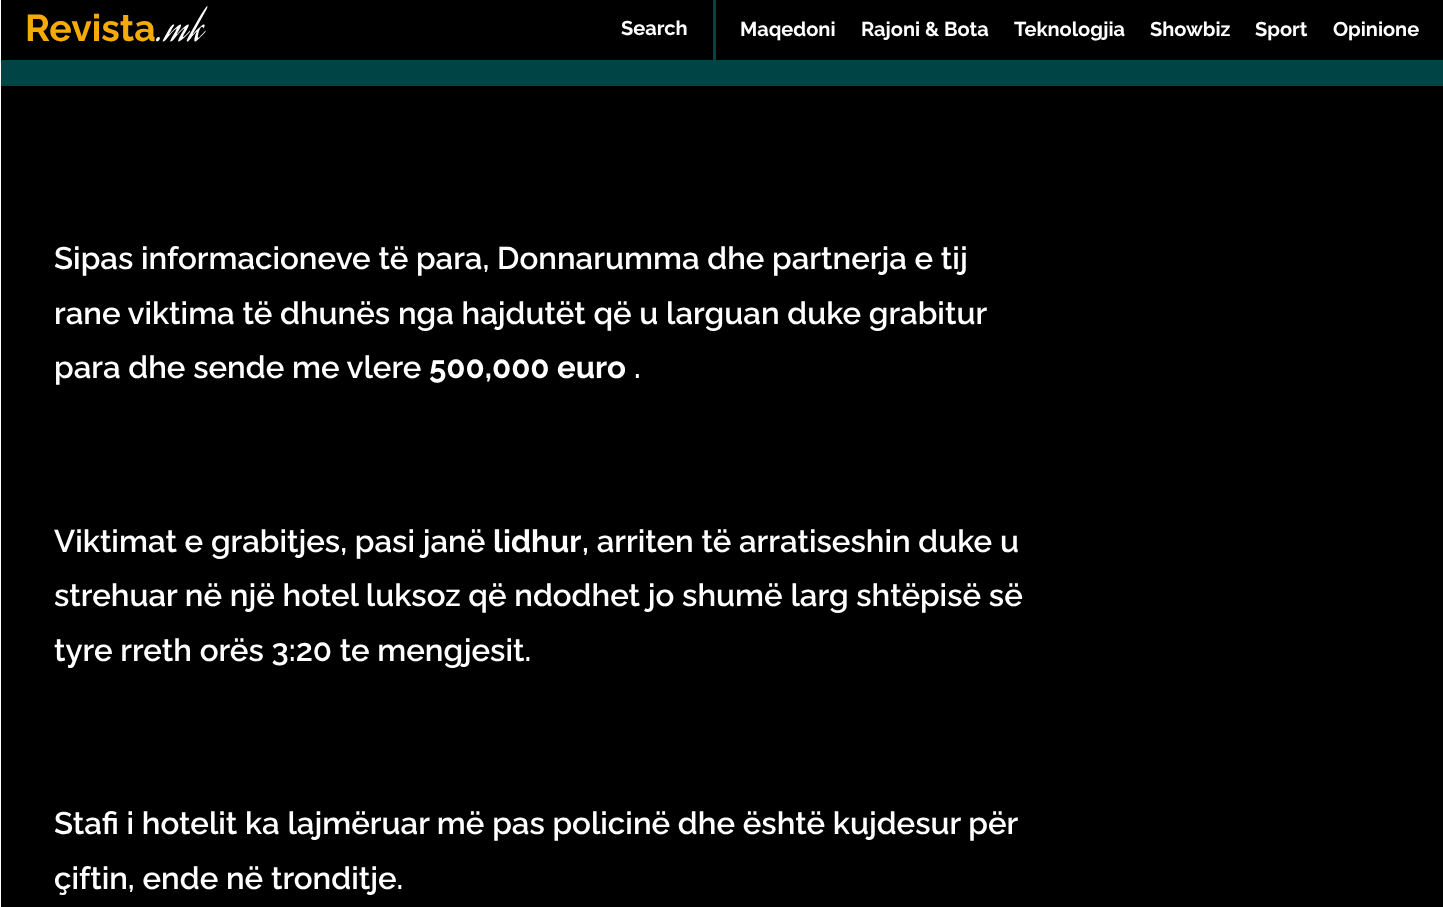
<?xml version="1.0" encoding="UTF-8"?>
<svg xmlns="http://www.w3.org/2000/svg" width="1443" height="907">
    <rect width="100%" height="100%" fill="#FFFFFF"/>
    <rect x="1" y="0" width="1442" height="60" fill="#000000"/>
    <text x="25" y="41" font-family="Raleway" font-size="37.5" font-weight="700" fill="#F5AB07">Revista</text>
    <text x="156" y="41" font-family="Aguafina Script" font-size="37.5" letter-spacing="2" fill="#FFFFFF">.mk</text>
    <text x="621" y="35" font-family="Raleway" font-size="20" font-weight="700" fill="#FFFFFF">Search</text>
    <rect x="713" y="0" width="3" height="60" fill="#004446"/>
    <text x="740" y="36" font-family="Raleway" font-size="20" font-weight="700" fill="#FFFFFF">Maqedoni</text>
    <text x="861" y="36" font-family="Raleway" font-size="20" font-weight="700" fill="#FFFFFF">Rajoni &amp; Bota</text>
    <text x="1014" y="36" font-family="Raleway" font-size="20" font-weight="700" fill="#FFFFFF">Teknologjia</text>
    <text x="1150" y="36" font-family="Raleway" font-size="20" font-weight="700" fill="#FFFFFF">Showbiz</text>
    <text x="1255" y="36" font-family="Raleway" font-size="20" font-weight="700" fill="#FFFFFF">Sport</text>
    <text x="1333" y="36" font-family="Raleway" font-size="20" font-weight="700" fill="#FFFFFF">Opinione</text>
    <rect x="1" y="60" width="1442" height="26" fill="#004446"/>
    <rect x="1" y="86" width="1442" height="821" fill="#000000"/>
    <text font-family="Raleway" font-size="31.25" font-weight="600" fill="#FFFFFF">
        <tspan x="54" y="269">Sipas informacioneve të para, Donnarumma dhe partnerja e tij</tspan>
        <tspan x="54" y="324">rane viktima të dhunës nga hajdutët që u larguan duke grabitur</tspan>
        <tspan x="54" y="378">para dhe sende me vlere</tspan>
    </text>
    <text x="429" y="378" font-family="Raleway" font-size="31.25" font-weight="700" fill="#FFFFFF">500,000 euro</text>
    <text x="634" y="378" font-family="Raleway" font-size="31.25" font-weight="600" fill="#FFFFFF">.</text>
    <text x="54" y="552" font-family="Raleway" font-size="31.25" font-weight="600" fill="#FFFFFF">Viktimat e grabitjes, pasi janë</text>
    <text x="493" y="552" font-family="Raleway" font-size="31.25" font-weight="700" fill="#FFFFFF">lidhur</text>
    <text x="582" y="552" font-family="Raleway" font-size="31.25" font-weight="600" fill="#FFFFFF">, arriten të arratiseshin duke u</text>
    <text font-family="Raleway" font-size="31.25" font-weight="600" fill="#FFFFFF">
        <tspan x="54" y="606">strehuar në një hotel luksoz që ndodhet jo shumë larg shtëpisë së</tspan>
        <tspan x="54" y="661">tyre rreth orës 3:20 te mengjesit.</tspan>
    </text>
    <text font-family="Raleway" font-size="31.25" font-weight="600" fill="#FFFFFF">
        <tspan x="54" y="834">Stafi i hotelit ka lajmëruar më pas policinë dhe është kujdesur për</tspan>
        <tspan x="54" y="889">çiftin, ende në tronditje.</tspan>
    </text>
</svg>
